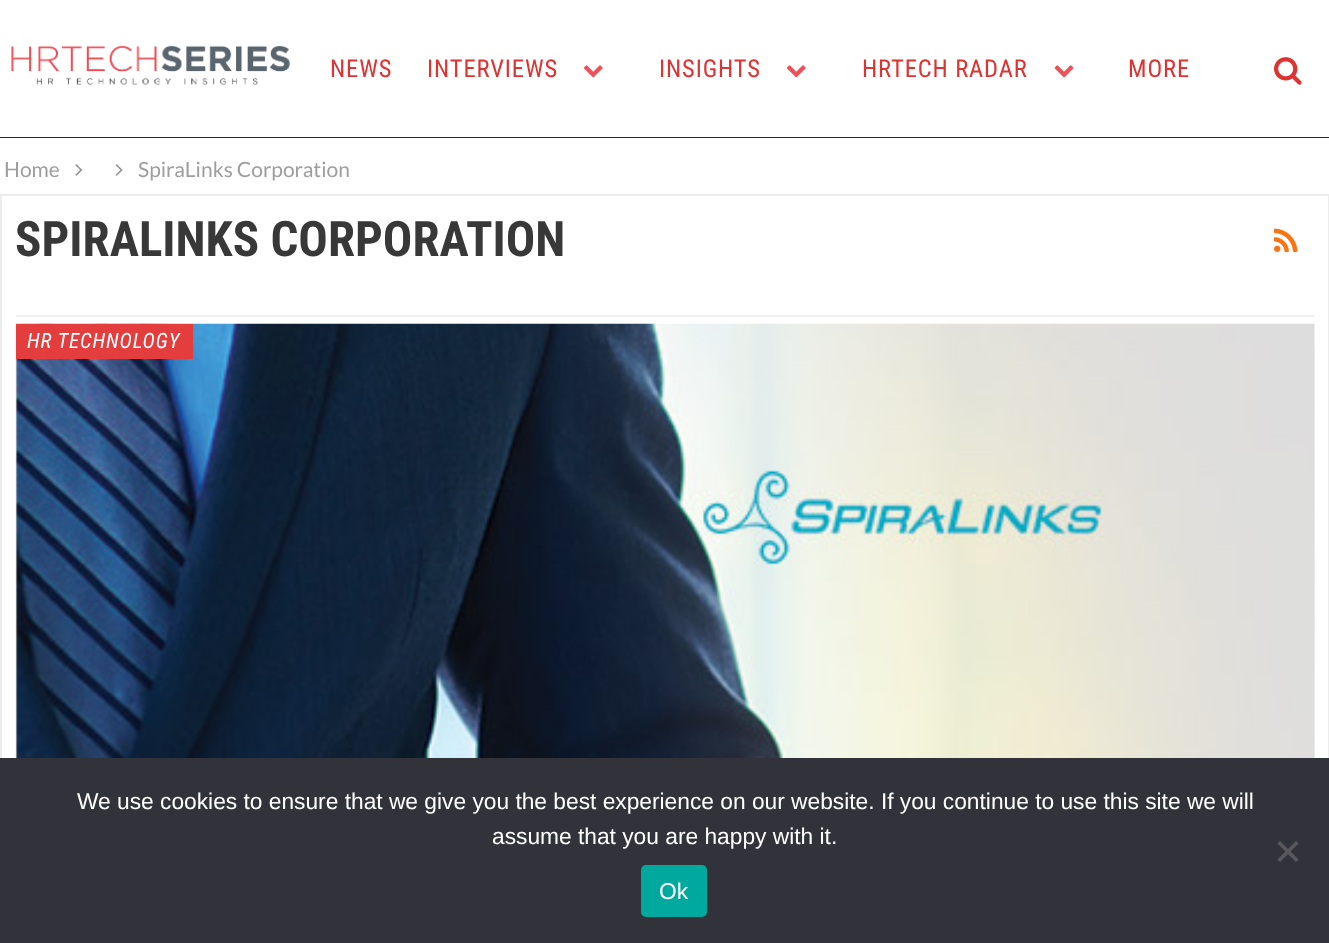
<?xml version="1.0" encoding="UTF-8"?>
<svg xmlns="http://www.w3.org/2000/svg" width="1329" height="943">
    <rect width="100%" height="100%" fill="#FFFFFF"/>
    <rect x="0" y="137" width="1329" height="1" fill="#292929"/>
    <image x="11" y="45" width="279" height="40" href="img_01.png"/>
    <text x="330" y="77" font-family="Roboto Condensed" font-size="24.5" letter-spacing="0.9" fill="#DD3333">NEWS</text>
    <text x="427" y="77" font-family="Roboto Condensed" font-size="24.5" letter-spacing="0.9" fill="#DD3333">INTERVIEWS</text>
    <image x="583" y="65" width="20" height="13" href="img_02.png"/>
    <text x="659" y="77" font-family="Roboto Condensed" font-size="24.5" letter-spacing="0.9" fill="#DD3333">INSIGHTS</text>
    <image x="786" y="65" width="20" height="13" href="img_02.png"/>
    <text x="862" y="77" font-family="Roboto Condensed" font-size="24.5" letter-spacing="0.9" fill="#DD3333">HRTECH RADAR</text>
    <image x="1054" y="65" width="20" height="13" href="img_03.png"/>
    <text x="1128" y="77" font-family="Roboto Condensed" font-size="24.5" letter-spacing="0.9" fill="#DD3333">MORE</text>
    <image x="1274" y="57" width="28" height="28" href="img_04.png"/>
    <text x="4" y="177" font-family="Lato" font-size="21" fill="#9E9E9E">Home</text>
    <image x="75" y="164" width="8" height="12" href="img_05.png"/>
    <image x="115" y="164" width="8" height="12" href="img_06.png"/>
    <text x="138" y="177" font-family="Lato" font-size="21" fill="#9E9E9E">SpiraLinks Corporation</text>
    <rect x="1" y="195" width="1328" height="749" fill="none" stroke="#ECECEC" stroke-width="2"/>
    <rect x="16" y="315" width="1298" height="2" fill="#F0F0F0"/>
    <text x="15" y="256" font-family="Roboto Condensed" font-size="49" font-weight="700" fill="#383838">SPIRALINKS CORPORATION</text>
    <image x="1274" y="228" width="24" height="24" href="img_07.png"/>
    <image x="15" y="323" width="1300" height="435" href="img_08.png"/>
    <rect x="16" y="324" width="177" height="35" fill="#E33D3D"/>
    <text x="27" y="348" font-family="Roboto Condensed" font-size="21" font-style="italic" letter-spacing="0.9" fill="#FFFFFF">HR TECHNOLOGY</text>
    <rect x="0" y="758" width="1329" height="185" fill="#32323A"/>
    <text x="77" y="809" font-family="Liberation Sans" font-size="22.75" fill="#FFFFFF">We use cookies to ensure that we give you the best experience on our website. If you continue to use this site we will</text>
    <text x="492" y="844" font-family="Liberation Sans" font-size="22.75" fill="#FFFFFF">assume that you are happy with it.</text>
    <path d="M 1296 841 L 1298.5 843.5 L 1280 862 L 1277.5 859.5 Z" fill="#59595D"/>
    <path d="M 1277.5 843.5 L 1280 841 L 1298.5 859.5 L 1296 862 Z" fill="#59595D"/>
    <rect x="641" y="865" width="66" height="52" rx="5" fill="#00A99D"/>
    <text x="659" y="899" font-family="Liberation Sans" font-size="22.75" fill="#FFFFFF">Ok</text>
</svg>
